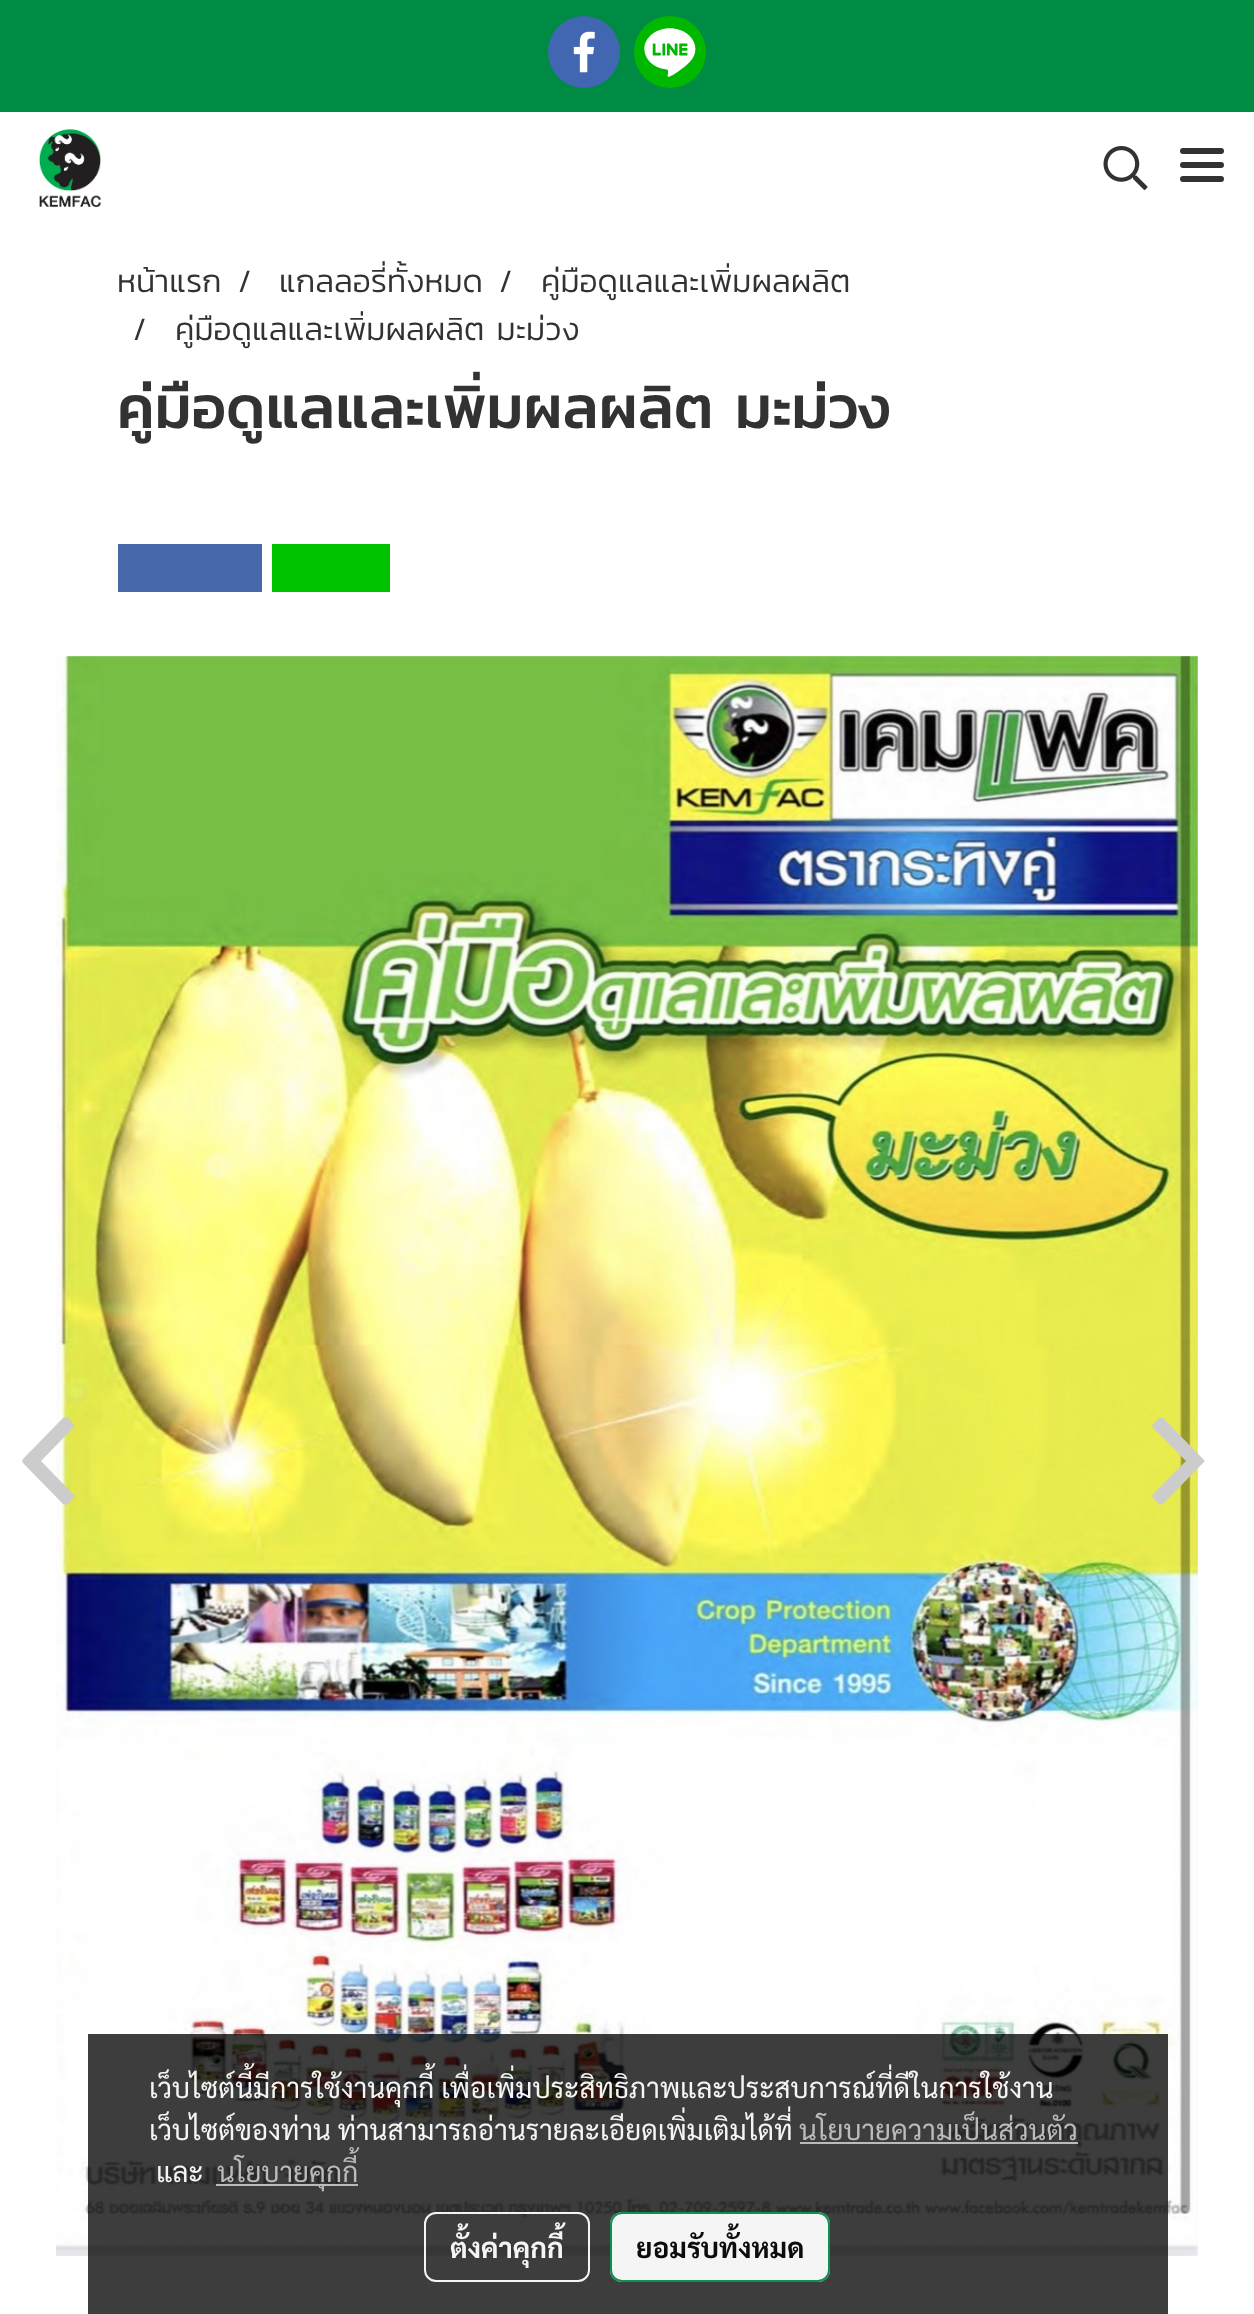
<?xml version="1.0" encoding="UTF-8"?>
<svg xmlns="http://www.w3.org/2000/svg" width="1254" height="2314">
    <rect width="100%" height="100%" fill="#FFFFFF"/>
    <rect x="0" y="0" width="1254" height="112" fill="#008B44"/>
    <circle cx="584" cy="52" r="36" fill="#4267B2"/>
    <image x="573" y="31" width="22" height="42" href="img_01.png"/>
    <circle cx="670" cy="52" r="36" fill="#00B800"/>
    <image x="644" y="28" width="52" height="49" href="img_02.png"/>
    <image x="39" y="129" width="63" height="79" href="img_03.png"/>
    <image x="1103" y="146" width="45" height="44" href="img_04.png"/>
    <rect x="1180" y="162" width="44" height="6" rx="3" fill="#323232"/>
    <rect x="1180" y="148" width="44" height="6" rx="3" fill="#323232"/>
    <rect x="1180" y="176" width="44" height="6" rx="3" fill="#323232"/>
    <text x="117" y="292" font-family="Kanit" font-size="32" font-weight="300" fill="#323232">หน้าแรก</text>
    <text x="238" y="292" font-family="Kanit" font-size="32" font-weight="300" fill="#323232">/</text>
    <text x="279" y="292" font-family="Kanit" font-size="32" font-weight="300" fill="#323232">แกลลอรี่ทั้งหมด</text>
    <text x="499" y="292" font-family="Kanit" font-size="32" font-weight="300" fill="#323232">/</text>
    <text x="541" y="292" font-family="Kanit" font-size="32" font-weight="300" fill="#323232">คู่มือดูแลและเพิ่มผลผลิต</text>
    <text x="133" y="340" font-family="Kanit" font-size="32" font-weight="300" fill="#323232">/</text>
    <text x="175" y="340" font-family="Kanit" font-size="32" font-weight="300" fill="#323232">คู่มือดูแลและเพิ่มผลผลิต มะม่วง</text>
    <text x="117" y="428" font-family="Kanit" font-size="60" font-weight="500" fill="#323232">คู่มือดูแลและเพิ่มผลผลิต มะม่วง</text>
    <rect x="118" y="544" width="144" height="48" fill="#4769A9"/>
    <rect x="272" y="544" width="118" height="48" fill="#00C300"/>
    <image x="56" y="656" width="1142" height="1600" href="img_05.png"/>
    <path d="M 23 1459 L 63 1418 C 65 1417 67 1417 68 1418 L 73 1424 C 75 1425 75 1427 73 1428 L 41 1461 L 73 1494 C 75 1495 75 1497 73 1498 L 68 1504 C 67 1505 65 1505 63 1504 L 23 1463 C 22 1462 22 1460 23 1459 Z" fill="#CCCCCC"/>
    <path d="M 1203 1463 L 1163 1504 C 1162 1505 1160 1505 1159 1504 L 1153 1498 C 1152 1497 1152 1495 1153 1494 L 1186 1461 L 1153 1428 C 1152 1427 1152 1425 1153 1424 L 1159 1418 C 1160 1417 1162 1417 1163 1418 L 1203 1459 C 1205 1460 1205 1462 1203 1463 Z" fill="#CCCCCC"/>
    <rect x="88" y="2034" width="1080" height="280" fill="#000000" fill-opacity="0.76"/>
    <text font-family="Sarabun" font-size="28" fill="#F5F5F5">
        <tspan x="149" y="2098">เว็บไซต์นี้มีการใช้งานคุกกี้ เพื่อเพิ่มประสิทธิภาพและประสบการณ์ที่ดีในการใช้งาน</tspan>
        <tspan x="149" y="2140">เว็บไซต์ของท่าน ท่านสามารถอ่านรายละเอียดเพิ่มเติมได้ที่</tspan>
    </text>
    <text x="799" y="2140" font-family="Sarabun" font-size="28" fill="#BBBBBB">นโยบายความเป็นส่วนตัว</text>
    <rect x="800" y="2142" width="278" height="2" fill="#C2C2C2" fill-opacity="0.95"/>
    <text x="156" y="2182" font-family="Sarabun" font-size="28" fill="#F5F5F5">และ</text>
    <rect x="216" y="2184" width="142" height="2" fill="#C2C2C2" fill-opacity="0.95"/>
    <text x="217" y="2182" font-family="Sarabun" font-size="28" fill="#BBBBBB">นโยบายคุกกี้</text>
    <rect x="425" y="2213" width="164" height="68" rx="11" fill="none" stroke="#FFFFFF" stroke-opacity="0.95" stroke-width="2"/>
    <text x="450" y="2258" font-family="Sarabun" font-size="28" font-weight="700" fill="#F5F5F5">ตั้งค่าคุกกี้</text>
    <rect x="610" y="2212" width="220" height="70" rx="12" fill="#FFFFFF" fill-opacity="0.95"/>
    <rect x="611" y="2213" width="218" height="68" rx="11" fill="none" stroke="#008B44" stroke-opacity="0.95" stroke-width="2"/>
    <text x="636" y="2258" font-family="Sarabun" font-size="28" font-weight="700" fill="#0C0C0C">ยอมรับทั้งหมด</text>
</svg>
